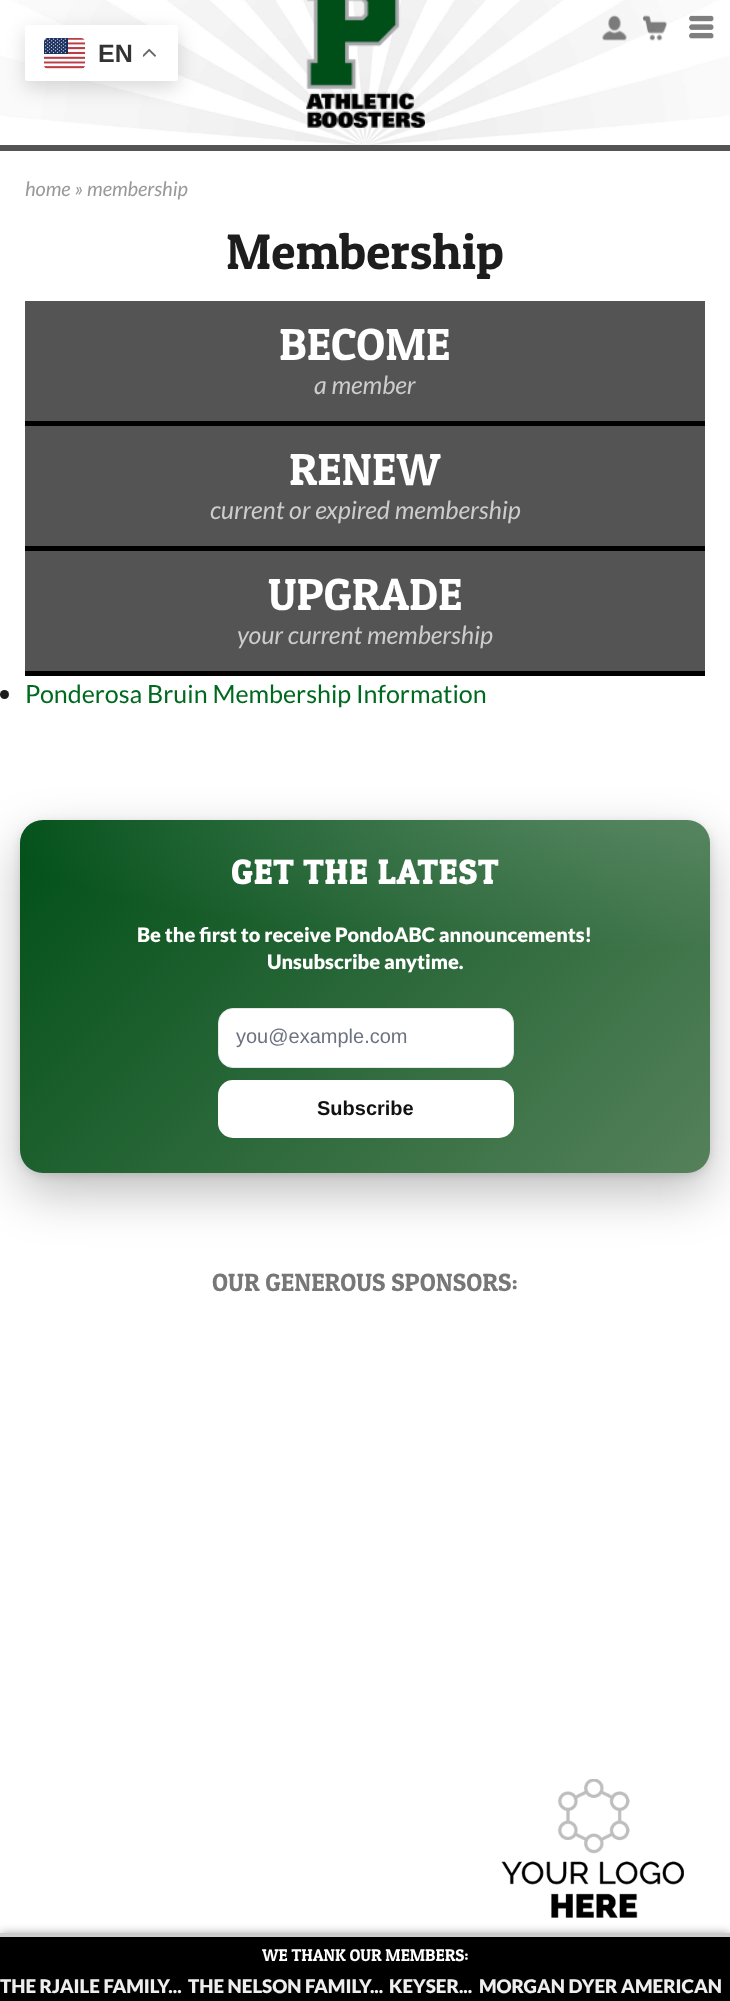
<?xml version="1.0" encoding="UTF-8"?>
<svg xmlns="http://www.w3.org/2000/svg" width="730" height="2001">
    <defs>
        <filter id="blur1" x="-50%" y="-200%" width="200%" height="500%"><feGaussianBlur stdDeviation="9.5"/></filter>
        <filter id="blur2" x="-50%" y="-200%" width="200%" height="500%"><feGaussianBlur stdDeviation="5"/></filter>
        <filter id="blur3" x="-50%" y="-200%" width="200%" height="500%"><feGaussianBlur stdDeviation="25"/></filter>
        <linearGradient id="g1" gradientUnits="userSpaceOnUse" x1="104" y1="736" x2="626" y2="1257"><stop offset="0" stop-color="#004F18"/><stop offset="1" stop-color="#55815A"/></linearGradient>
        <radialGradient id="g2" gradientUnits="userSpaceOnUse" cx="0" cy="0" r="1" gradientTransform="matrix(1125 0 0 275 607 785)"><stop offset="0" stop-color="#FFFFFF" stop-opacity="0.2"/><stop offset="0.6" stop-color="#FFFFFF" stop-opacity="0"/></radialGradient>
    </defs>
    <rect width="100%" height="100%" fill="#FFFFFF"/>
    <image x="0" y="0" width="730" height="145" href="img_01.png"/>
    <image x="306" y="0" width="119" height="128" href="img_02.png"/>
    <image x="689" y="15" width="25" height="24" href="img_03.png"/>
    <rect x="0" y="145" width="730" height="6" fill="#545454"/>
    <image x="602" y="15" width="25" height="26" href="img_04.png"/>
    <image x="643" y="15" width="24" height="26" href="img_05.png"/>
    <rect x="25" y="31" width="153" height="57" rx="2.5" fill="#000000" fill-opacity="0.15" filter="url(#blur1)"/>
    <rect x="25" y="25" width="153" height="56" rx="2.5" fill="#FFFFFF"/>
    <image x="44" y="38" width="41" height="31" href="img_06.png"/>
    <text x="98" y="62" font-family="Liberation Sans" font-size="25" font-weight="700" fill="#333333">EN</text>
    <image x="143" y="48" width="13" height="9" href="img_07.png"/>
    <text x="25" y="196" font-family="Lato" font-size="20" font-style="italic" fill="#999999">home » membership</text>
    <text x="226" y="269" font-family="Patua One" font-size="50" fill="#1D1D1D">Membership</text>
    <rect x="25" y="301" width="680" height="120" fill="#545454"/>
    <rect x="25" y="421" width="680" height="5" fill="#000000"/>
    <text x="279" y="360" font-family="Patua One" font-size="45" fill="#FFFFFF">BECOME</text>
    <text x="314" y="394" font-family="Lato" font-size="25" font-style="italic" fill="#CCCCCC">a member</text>
    <rect x="25" y="426" width="680" height="120" fill="#545454"/>
    <rect x="25" y="546" width="680" height="5" fill="#000000"/>
    <text x="289" y="485" font-family="Patua One" font-size="45" fill="#FFFFFF">RENEW</text>
    <text x="210" y="519" font-family="Lato" font-size="25" font-style="italic" fill="#CCCCCC">current or expired membership</text>
    <rect x="25" y="551" width="680" height="120" fill="#545454"/>
    <rect x="25" y="671" width="680" height="5" fill="#000000"/>
    <text x="268" y="610" font-family="Patua One" font-size="45" fill="#FFFFFF">UPGRADE</text>
    <text x="237" y="644" font-family="Lato" font-size="25" font-style="italic" fill="#CCCCCC">your current membership</text>
    <circle cx="4.5" cy="694.5" r="4.5" fill="#1D1D1D"/>
    <text x="25" y="703" font-family="Lato" font-size="25" fill="#006920">Ponderosa Bruin Membership Information</text>
    <rect x="20" y="823" width="690" height="352" rx="23" fill="#000000" fill-opacity="0.12" filter="url(#blur2)"/>
    <rect x="20" y="840" width="690" height="353" rx="23" fill="#000000" fill-opacity="0.25" filter="url(#blur3)"/>
    <rect x="20" y="820" width="690" height="353" rx="23" fill="url(#g1)"/>
    <rect x="20" y="820" width="690" height="353" rx="23" fill="url(#g2)"/>
    <text x="231" y="884" font-family="Patua One" font-size="34" font-weight="700" letter-spacing="1.4" fill="#FFFFFF">GET THE LATEST</text>
    <text x="137" y="942" font-family="Lato" font-size="20" font-weight="900" fill="#FFFFFF">Be the first to receive PondoABC announcements!</text>
    <text x="267" y="969" font-family="Lato" font-size="20" font-weight="900" fill="#FFFFFF">Unsubscribe anytime.</text>
    <rect x="218.5" y="1008.5" width="295" height="59" rx="14.5" fill="#FFFFFF" stroke="#E5E7EB"/>
    <text x="236" y="1043" font-family="Liberation Sans" font-size="20" fill="#6B7280">you@example.com</text>
    <rect x="218" y="1080" width="296" height="58" rx="15" fill="#FFFFFF"/>
    <text x="317" y="1115" font-family="Liberation Sans" font-size="20" font-weight="700" fill="#111111">Subscribe</text>
    <text x="212" y="1291" font-family="Patua One" font-size="25" fill="#777777">OUR GENEROUS SPONSORS:</text>
    <image x="501" y="1779" width="183" height="139" href="img_08.png"/>
    <rect x="0" y="1933" width="730" height="68" fill="#AAAAAA" filter="url(#blur2)"/>
    <rect x="0" y="1937" width="730" height="64" fill="#000000"/>
    <rect x="0" y="1933" width="730" height="4" fill="#CCCCCC"/>
    <text x="262" y="1961" font-family="Patua One" font-size="16.9" fill="#FFFFFF">WE THANK OUR MEMBERS:</text>
    <text x="0" y="1993" font-family="Lato" font-size="18.75" font-weight="900" fill="#EEEEEE">THE RJAILE FAMILY...</text>
    <text x="188" y="1993" font-family="Lato" font-size="18.75" font-weight="900" fill="#EEEEEE">THE NELSON FAMILY...</text>
    <text x="389" y="1993" font-family="Lato" font-size="18.75" font-weight="900" fill="#EEEEEE">KEYSER...</text>
    <text x="479" y="1993" font-family="Lato" font-size="18.75" font-weight="900" fill="#EEEEEE">MORGAN DYER AMERICAN</text>
</svg>
